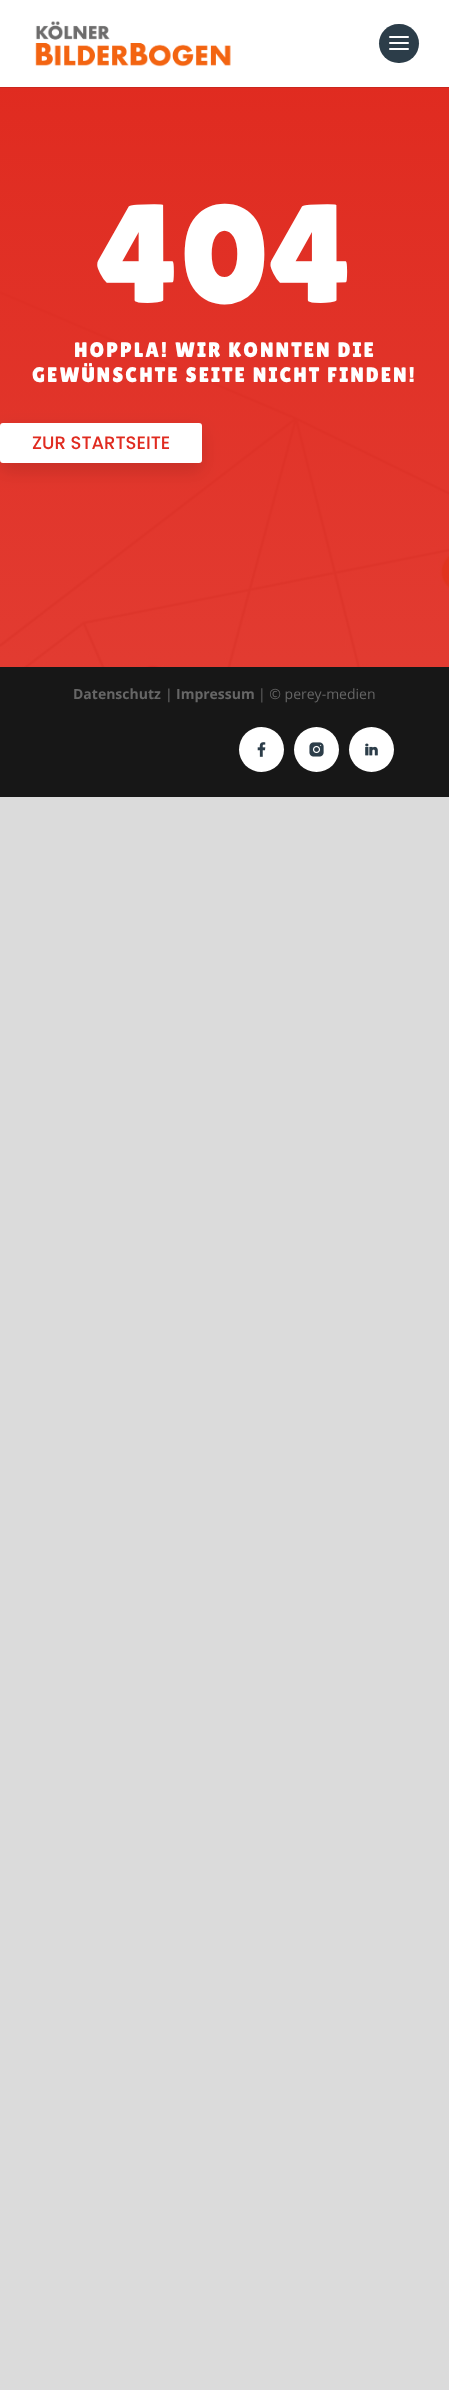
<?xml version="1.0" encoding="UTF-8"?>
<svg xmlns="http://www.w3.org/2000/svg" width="449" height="2390">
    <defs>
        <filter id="blur1" x="-50%" y="-200%" width="200%" height="500%"><feGaussianBlur stdDeviation="9"/></filter>
    </defs>
    <rect width="100%" height="100%" fill="#DBDBDB"/>
    <rect x="0" y="87" width="449" height="1" fill="#CA271D"/>
    <rect x="0" y="0" width="449" height="87" fill="#FFFFFF"/>
    <image x="35" y="21" width="196" height="46" href="img_01.png"/>
    <rect x="379" y="24" width="40" height="39" rx="19.5" fill="#2C3D49"/>
    <rect x="389" y="36" width="20" height="2" rx="1" fill="#FFFFFF"/>
    <rect x="389" y="42" width="20" height="2" rx="1" fill="#FFFFFF"/>
    <rect x="389" y="48" width="20" height="2" rx="1" fill="#FFFFFF"/>
    <image x="0" y="88" width="449" height="579" href="img_02.png"/>
    <text x="96" y="303" font-family="Lilita One" font-size="140" fill="#FFFFFF">404</text>
    <text x="74" y="357" font-family="Lilita One" font-size="21" letter-spacing="2" fill="#FFFFFF">HOPPLA! WIR KONNTEN DIE</text>
    <text x="32" y="382" font-family="Lilita One" font-size="21" letter-spacing="2" fill="#FFFFFF">GEWÜNSCHTE SEITE NICHT FINDEN!</text>
    <rect x="0" y="431" width="202" height="40" rx="3" fill="#000000" fill-opacity="0.12" filter="url(#blur1)"/>
    <rect x="1" y="424" width="200" height="38" rx="2" fill="#FFFFFF" stroke="#FFFFFF" stroke-width="2"/>
    <text x="32" y="449" font-family="Poppins" font-size="18" font-weight="500" fill="#E02B20">ZUR STARTSEITE</text>
    <rect x="0" y="667" width="449" height="130" fill="#171717"/>
    <text x="73" y="699" font-family="Open Sans" font-size="14" font-weight="700" fill="#666666">Datenschutz</text>
    <text x="165" y="699" font-family="Open Sans" font-size="14" font-weight="500" fill="#666666">|</text>
    <text x="176" y="699" font-family="Open Sans" font-size="14" font-weight="700" fill="#666666">Impressum</text>
    <text x="258" y="699" font-family="Open Sans" font-size="14" fill="#666666">| © perey-medien</text>
    <circle cx="261.5" cy="749.5" r="22.5" fill="#FFFFFF"/>
    <image x="257" y="742" width="9" height="15" href="img_03.png"/>
    <circle cx="316.5" cy="749.5" r="22.5" fill="#FFFFFF"/>
    <image x="309" y="742" width="15" height="15" href="img_04.png"/>
    <circle cx="371.5" cy="749.5" r="22.5" fill="#FFFFFF"/>
    <image x="365" y="743" width="13" height="13" href="img_05.png"/>
</svg>
